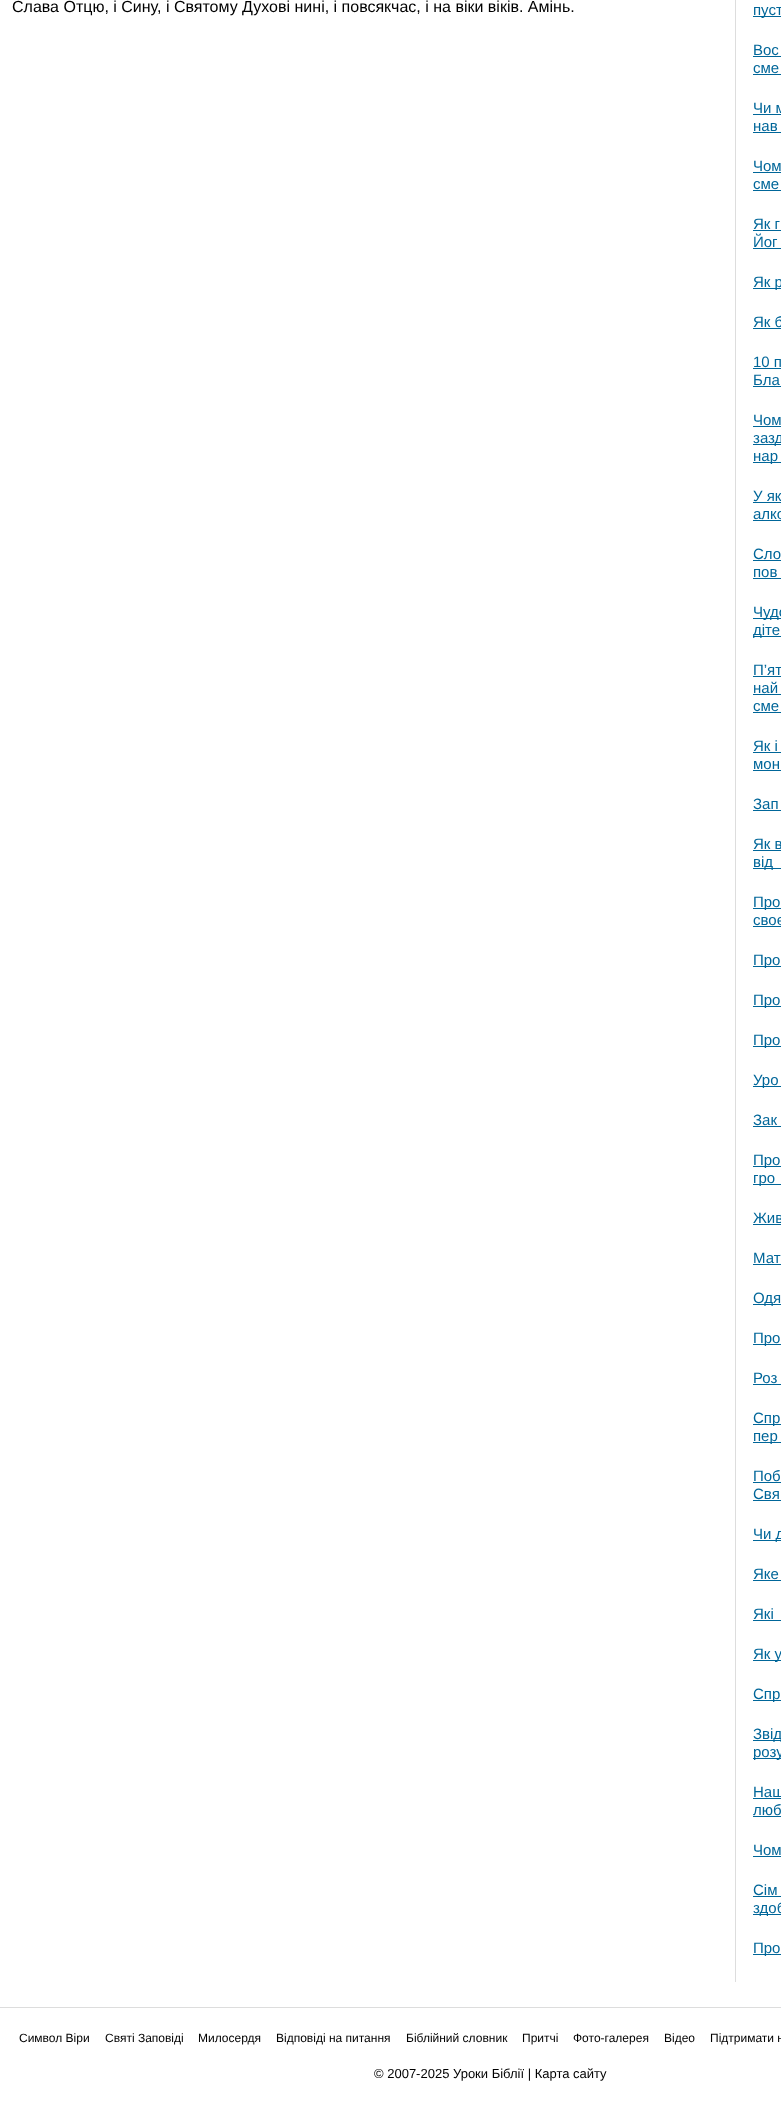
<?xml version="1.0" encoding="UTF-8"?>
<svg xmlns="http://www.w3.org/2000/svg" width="781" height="2101">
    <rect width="100%" height="100%" fill="#FFFFFF"/>
    <text x="12" y="12" font-family="Liberation Sans" font-size="16" fill="#000000">Слава Отцю, і Сину, і Святому Духові нині, і повсякчас, і на віки віків. Амінь.</text>
    <rect x="735" y="0" width="1" height="1982" fill="#DDDDDD"/>
    <rect x="753" y="16" width="28" height="1" fill="#006699"/>
    <text x="753" y="15" font-family="Liberation Sans" font-size="15" fill="#006699">пуст</text>
    <text x="753" y="55" font-family="Liberation Sans" font-size="15" fill="#006699">Вос</text>
    <rect x="753" y="56" width="28" height="1" fill="#006699"/>
    <text x="753" y="73" font-family="Liberation Sans" font-size="15" fill="#006699">сме</text>
    <rect x="753" y="74" width="28" height="1" fill="#006699"/>
    <text x="753" y="113" font-family="Liberation Sans" font-size="15" fill="#006699">Чи м</text>
    <rect x="753" y="114" width="28" height="1" fill="#006699"/>
    <text x="753" y="131" font-family="Liberation Sans" font-size="15" fill="#006699">нав</text>
    <rect x="753" y="132" width="28" height="1" fill="#006699"/>
    <text x="753" y="171" font-family="Liberation Sans" font-size="15" fill="#006699">Чом</text>
    <rect x="753" y="172" width="28" height="1" fill="#006699"/>
    <text x="753" y="189" font-family="Liberation Sans" font-size="15" fill="#006699">сме</text>
    <rect x="753" y="190" width="28" height="1" fill="#006699"/>
    <text x="753" y="229" font-family="Liberation Sans" font-size="15" fill="#006699">Як г</text>
    <rect x="753" y="230" width="28" height="1" fill="#006699"/>
    <text x="753" y="247" font-family="Liberation Sans" font-size="15" fill="#006699">Йог</text>
    <rect x="753" y="248" width="28" height="1" fill="#006699"/>
    <rect x="753" y="288" width="28" height="1" fill="#006699"/>
    <text x="753" y="287" font-family="Liberation Sans" font-size="15" fill="#006699">Як р</text>
    <text x="753" y="327" font-family="Liberation Sans" font-size="15" fill="#006699">Як б</text>
    <rect x="753" y="328" width="28" height="1" fill="#006699"/>
    <text x="753" y="367" font-family="Liberation Sans" font-size="15" fill="#006699">10 п</text>
    <rect x="753" y="368" width="28" height="1" fill="#006699"/>
    <text x="753" y="385" font-family="Liberation Sans" font-size="15" fill="#006699">Бла</text>
    <rect x="753" y="386" width="28" height="1" fill="#006699"/>
    <text x="753" y="425" font-family="Liberation Sans" font-size="15" fill="#006699">Чом</text>
    <rect x="753" y="426" width="28" height="1" fill="#006699"/>
    <rect x="753" y="444" width="28" height="1" fill="#006699"/>
    <text x="753" y="443" font-family="Liberation Sans" font-size="15" fill="#006699">зазд</text>
    <rect x="753" y="462" width="28" height="1" fill="#006699"/>
    <text x="753" y="461" font-family="Liberation Sans" font-size="15" fill="#006699">нар</text>
    <text x="753" y="501" font-family="Liberation Sans" font-size="15" fill="#006699">У як</text>
    <rect x="753" y="502" width="28" height="1" fill="#006699"/>
    <text x="753" y="519" font-family="Liberation Sans" font-size="15" fill="#006699">алко</text>
    <rect x="753" y="520" width="28" height="1" fill="#006699"/>
    <text x="753" y="559" font-family="Liberation Sans" font-size="15" fill="#006699">Сло</text>
    <rect x="753" y="560" width="28" height="1" fill="#006699"/>
    <text x="753" y="577" font-family="Liberation Sans" font-size="15" fill="#006699">пов</text>
    <rect x="753" y="578" width="28" height="1" fill="#006699"/>
    <rect x="753" y="618" width="28" height="1" fill="#006699"/>
    <text x="753" y="617" font-family="Liberation Sans" font-size="15" fill="#006699">Чудо</text>
    <rect x="753" y="636" width="28" height="1" fill="#006699"/>
    <text x="753" y="635" font-family="Liberation Sans" font-size="15" fill="#006699">діте</text>
    <text x="753" y="675" font-family="Liberation Sans" font-size="15" fill="#006699">П’ят</text>
    <rect x="753" y="676" width="28" height="1" fill="#006699"/>
    <text x="753" y="693" font-family="Liberation Sans" font-size="15" fill="#006699">най</text>
    <rect x="753" y="694" width="28" height="1" fill="#006699"/>
    <text x="753" y="711" font-family="Liberation Sans" font-size="15" fill="#006699">сме</text>
    <rect x="753" y="712" width="28" height="1" fill="#006699"/>
    <text x="753" y="751" font-family="Liberation Sans" font-size="15" fill="#006699">Як і</text>
    <rect x="753" y="752" width="28" height="1" fill="#006699"/>
    <text x="753" y="769" font-family="Liberation Sans" font-size="15" fill="#006699">мон</text>
    <rect x="753" y="770" width="28" height="1" fill="#006699"/>
    <text x="753" y="809" font-family="Liberation Sans" font-size="15" fill="#006699">Зап</text>
    <rect x="753" y="810" width="28" height="1" fill="#006699"/>
    <text x="753" y="849" font-family="Liberation Sans" font-size="15" fill="#006699">Як в</text>
    <rect x="753" y="850" width="28" height="1" fill="#006699"/>
    <rect x="753" y="868" width="28" height="1" fill="#006699"/>
    <text x="753" y="867" font-family="Liberation Sans" font-size="15" fill="#006699">від</text>
    <rect x="753" y="908" width="28" height="1" fill="#006699"/>
    <text font-family="Liberation Sans" font-size="15" fill="#006699">
        <tspan x="753" y="907">Про</tspan>
        <tspan x="753" y="925">своє</tspan>
    </text>
    <rect x="753" y="926" width="28" height="1" fill="#006699"/>
    <rect x="753" y="966" width="28" height="1" fill="#006699"/>
    <text x="753" y="965" font-family="Liberation Sans" font-size="15" fill="#006699">Про</text>
    <rect x="753" y="1006" width="28" height="1" fill="#006699"/>
    <text x="753" y="1005" font-family="Liberation Sans" font-size="15" fill="#006699">Про</text>
    <rect x="753" y="1046" width="28" height="1" fill="#006699"/>
    <text x="753" y="1045" font-family="Liberation Sans" font-size="15" fill="#006699">Про</text>
    <rect x="753" y="1086" width="28" height="1" fill="#006699"/>
    <text x="753" y="1085" font-family="Liberation Sans" font-size="15" fill="#006699">Уро</text>
    <text x="753" y="1125" font-family="Liberation Sans" font-size="15" fill="#006699">Зак</text>
    <rect x="753" y="1126" width="28" height="1" fill="#006699"/>
    <rect x="753" y="1166" width="28" height="1" fill="#006699"/>
    <text x="753" y="1165" font-family="Liberation Sans" font-size="15" fill="#006699">Про</text>
    <rect x="753" y="1184" width="28" height="1" fill="#006699"/>
    <text x="753" y="1183" font-family="Liberation Sans" font-size="15" fill="#006699">гро</text>
    <text x="753" y="1223" font-family="Liberation Sans" font-size="15" fill="#006699">Жив</text>
    <rect x="753" y="1224" width="28" height="1" fill="#006699"/>
    <text x="753" y="1263" font-family="Liberation Sans" font-size="15" fill="#006699">Мат</text>
    <rect x="753" y="1264" width="28" height="1" fill="#006699"/>
    <rect x="753" y="1304" width="28" height="1" fill="#006699"/>
    <text x="753" y="1303" font-family="Liberation Sans" font-size="15" fill="#006699">Одя</text>
    <rect x="753" y="1344" width="28" height="1" fill="#006699"/>
    <text x="753" y="1343" font-family="Liberation Sans" font-size="15" fill="#006699">Про</text>
    <text x="753" y="1383" font-family="Liberation Sans" font-size="15" fill="#006699">Роз</text>
    <rect x="753" y="1384" width="28" height="1" fill="#006699"/>
    <rect x="753" y="1424" width="28" height="1" fill="#006699"/>
    <text x="753" y="1423" font-family="Liberation Sans" font-size="15" fill="#006699">Спр</text>
    <rect x="753" y="1442" width="28" height="1" fill="#006699"/>
    <text x="753" y="1441" font-family="Liberation Sans" font-size="15" fill="#006699">пер</text>
    <text x="753" y="1481" font-family="Liberation Sans" font-size="15" fill="#006699">Поб</text>
    <rect x="753" y="1482" width="28" height="1" fill="#006699"/>
    <text x="753" y="1499" font-family="Liberation Sans" font-size="15" fill="#006699">Свя</text>
    <rect x="753" y="1500" width="28" height="1" fill="#006699"/>
    <rect x="753" y="1540" width="28" height="1" fill="#006699"/>
    <text x="753" y="1539" font-family="Liberation Sans" font-size="15" fill="#006699">Чи д</text>
    <text x="753" y="1579" font-family="Liberation Sans" font-size="15" fill="#006699">Яке</text>
    <rect x="753" y="1580" width="28" height="1" fill="#006699"/>
    <text x="753" y="1619" font-family="Liberation Sans" font-size="15" fill="#006699">Які</text>
    <rect x="753" y="1620" width="28" height="1" fill="#006699"/>
    <rect x="753" y="1660" width="28" height="1" fill="#006699"/>
    <text x="753" y="1659" font-family="Liberation Sans" font-size="15" fill="#006699">Як у</text>
    <rect x="753" y="1700" width="28" height="1" fill="#006699"/>
    <text x="753" y="1699" font-family="Liberation Sans" font-size="15" fill="#006699">Спр</text>
    <rect x="753" y="1740" width="28" height="1" fill="#006699"/>
    <text x="753" y="1739" font-family="Liberation Sans" font-size="15" fill="#006699">Звід</text>
    <rect x="753" y="1758" width="28" height="1" fill="#006699"/>
    <text x="753" y="1757" font-family="Liberation Sans" font-size="15" fill="#006699">розу</text>
    <text x="753" y="1797" font-family="Liberation Sans" font-size="15" fill="#006699">Наш</text>
    <rect x="753" y="1798" width="28" height="1" fill="#006699"/>
    <text x="753" y="1815" font-family="Liberation Sans" font-size="15" fill="#006699">люб</text>
    <rect x="753" y="1816" width="28" height="1" fill="#006699"/>
    <text x="753" y="1855" font-family="Liberation Sans" font-size="15" fill="#006699">Чом</text>
    <rect x="753" y="1856" width="28" height="1" fill="#006699"/>
    <text x="753" y="1895" font-family="Liberation Sans" font-size="15" fill="#006699">Сім</text>
    <rect x="753" y="1896" width="28" height="1" fill="#006699"/>
    <rect x="753" y="1914" width="28" height="1" fill="#006699"/>
    <text x="753" y="1913" font-family="Liberation Sans" font-size="15" fill="#006699">здоб</text>
    <rect x="753" y="1954" width="28" height="1" fill="#006699"/>
    <text x="753" y="1953" font-family="Liberation Sans" font-size="15" fill="#006699">Про</text>
    <rect x="0" y="2007" width="781" height="1" fill="#DDDDDD"/>
    <text x="19" y="2042" font-family="Liberation Sans" font-size="12" fill="#000000">Символ Віри</text>
    <text x="105" y="2042" font-family="Liberation Sans" font-size="12" fill="#000000">Святі Заповіді</text>
    <text x="198" y="2042" font-family="Liberation Sans" font-size="12" fill="#000000">Милосердя</text>
    <text x="276" y="2042" font-family="Liberation Sans" font-size="12" fill="#000000">Відповіді на питання</text>
    <text x="406" y="2042" font-family="Liberation Sans" font-size="12" fill="#000000">Біблійний словник</text>
    <text x="522" y="2042" font-family="Liberation Sans" font-size="12" fill="#000000">Притчі</text>
    <text x="573" y="2042" font-family="Liberation Sans" font-size="12" fill="#000000">Фото-галерея</text>
    <text x="664" y="2042" font-family="Liberation Sans" font-size="12" fill="#000000">Відео</text>
    <text x="710" y="2042" font-family="Liberation Sans" font-size="12" fill="#000000">Підтримати н</text>
    <text x="374" y="2078" font-family="Liberation Sans" font-size="13" fill="#000000">© 2007-2025 Уроки Біблії | Карта сайту</text>
</svg>
